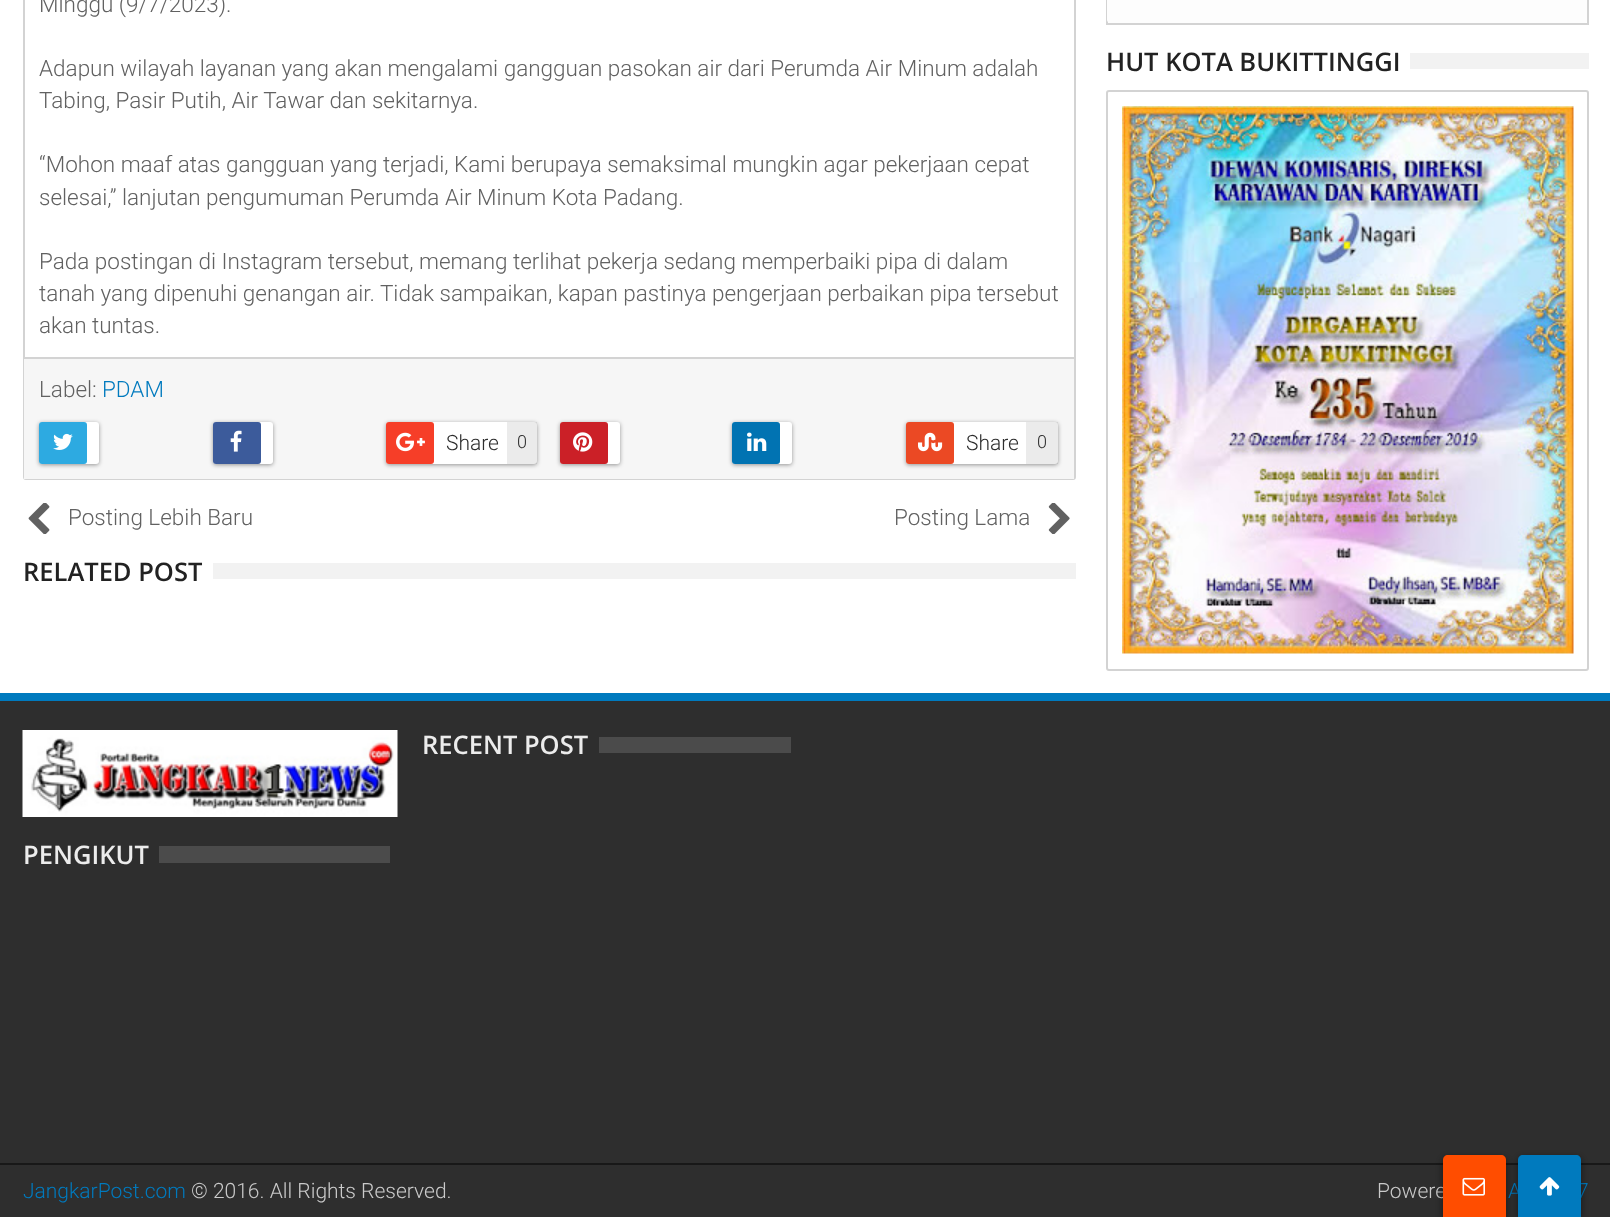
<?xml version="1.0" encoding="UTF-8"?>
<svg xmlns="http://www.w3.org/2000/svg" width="1610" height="1217">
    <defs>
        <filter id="blur1" x="-50%" y="-200%" width="200%" height="500%"><feGaussianBlur stdDeviation="2"/></filter>
        <filter id="blur2" x="-50%" y="-200%" width="200%" height="500%"><feGaussianBlur stdDeviation="4"/></filter>
    </defs>
    <rect width="100%" height="100%" fill="#FFFFFF"/>
    <rect x="24" y="-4" width="1051" height="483" rx="2" fill="none" stroke="#D3D3D3" stroke-width="2"/>
    <text x="39" y="12" font-family="Roboto" font-size="22.5" font-weight="300" fill="#616161">Minggu (9/7/2023).</text>
    <text font-family="Roboto" font-size="22.5" font-weight="300" fill="#616161">
        <tspan x="39" y="76">Adapun wilayah layanan yang akan mengalami gangguan pasokan air dari Perumda Air Minum adalah</tspan>
        <tspan x="39" y="108">Tabing, Pasir Putih, Air Tawar dan sekitarnya.</tspan>
    </text>
    <text font-family="Roboto" font-size="22.5" font-weight="300" fill="#616161">
        <tspan x="39" y="172">“Mohon maaf atas gangguan yang terjadi, Kami berupaya semaksimal mungkin agar pekerjaan cepat</tspan>
        <tspan x="39" y="205">selesai,” lanjutan pengumuman Perumda Air Minum Kota Padang.</tspan>
    </text>
    <text font-family="Roboto" font-size="22.5" font-weight="300" fill="#616161">
        <tspan x="39" y="269">Pada postingan di Instagram tersebut, memang terlihat pekerja sedang memperbaiki pipa di dalam</tspan>
        <tspan x="39" y="301">tanah yang dipenuhi genangan air. Tidak sampaikan, kapan pastinya pengerjaan perbaikan pipa tersebut</tspan>
        <tspan x="39" y="333">akan tuntas.</tspan>
    </text>
    <rect x="24" y="359" width="1050" height="120" fill="#F6F6F6"/>
    <rect x="24" y="357" width="1050" height="2" fill="#D3D3D3"/>
    <text x="39" y="397" font-family="Roboto" font-size="22.5" font-weight="300" fill="#616161">Label:</text>
    <text x="102" y="397" font-family="Roboto" font-size="22.5" font-weight="300" fill="#007ABE">PDAM</text>
    <rect x="39" y="423" width="60" height="42" rx="3" fill="#000000" fill-opacity="0.4" filter="url(#blur1)"/>
    <rect x="39" y="422" width="60" height="42" rx="3" fill="#FFFFFF"/>
    <rect x="39" y="422" width="48" height="42" rx="3" fill="#2DAAE1"/>
    <image x="53" y="433" width="20" height="17" href="img_01.png"/>
    <rect x="213" y="423" width="60" height="42" rx="3" fill="#000000" fill-opacity="0.4" filter="url(#blur1)"/>
    <rect x="213" y="422" width="60" height="42" rx="3" fill="#FFFFFF"/>
    <rect x="213" y="422" width="48" height="42" rx="3" fill="#3C5B9B"/>
    <image x="230" y="430" width="12" height="22" href="img_02.png"/>
    <rect x="386" y="423" width="151" height="42" rx="3" fill="#000000" fill-opacity="0.4" filter="url(#blur1)"/>
    <rect x="386" y="422" width="151" height="42" rx="3" fill="#FFFFFF"/>
    <rect x="386" y="422" width="48" height="42" rx="3" fill="#F63E28"/>
    <image x="396" y="432" width="29" height="20" href="img_03.png"/>
    <text x="446" y="450" font-family="Roboto" font-size="21" font-weight="300" fill="#2E2E2E">Share</text>
    <rect x="507" y="422" width="30" height="42" fill="#000000" fill-opacity="0.08"/>
    <text x="517" y="448" font-family="Roboto" font-size="18" font-weight="300" fill="#2E2E2E">0</text>
    <rect x="560" y="423" width="60" height="42" rx="3" fill="#000000" fill-opacity="0.4" filter="url(#blur1)"/>
    <rect x="560" y="422" width="60" height="42" rx="3" fill="#FFFFFF"/>
    <rect x="560" y="422" width="48" height="42" rx="3" fill="#CB2027"/>
    <image x="573" y="432" width="20" height="20" href="img_04.png"/>
    <rect x="732" y="423" width="60" height="42" rx="3" fill="#000000" fill-opacity="0.4" filter="url(#blur1)"/>
    <rect x="732" y="422" width="60" height="42" rx="3" fill="#FFFFFF"/>
    <rect x="732" y="422" width="48" height="42" rx="3" fill="#0173B2"/>
    <image x="747" y="432" width="20" height="19" href="img_05.png"/>
    <rect x="906" y="423" width="152" height="42" rx="3" fill="#000000" fill-opacity="0.4" filter="url(#blur1)"/>
    <rect x="906" y="422" width="152" height="42" rx="3" fill="#FFFFFF"/>
    <rect x="906" y="422" width="48" height="42" rx="3" fill="#EB4924"/>
    <image x="918" y="432" width="25" height="20" href="img_06.png"/>
    <text x="966" y="450" font-family="Roboto" font-size="21" font-weight="300" fill="#2E2E2E">Share</text>
    <rect x="1026" y="422" width="32" height="42" fill="#000000" fill-opacity="0.08"/>
    <text x="1037" y="448" font-family="Roboto" font-size="18" font-weight="300" fill="#2E2E2E">0</text>
    <image x="28" y="503" width="22" height="31" href="img_07.png"/>
    <text x="68" y="525" font-family="Roboto" font-size="22.5" font-weight="300" fill="#616161">Posting Lebih Baru</text>
    <text x="894" y="525" font-family="Roboto" font-size="22.5" font-weight="300" fill="#616161">Posting Lama</text>
    <image x="1048" y="503" width="22" height="31" href="img_08.png"/>
    <text x="23" y="581" font-family="Open Sans" font-size="25.5" font-weight="600" fill="#222222">RELATED POST</text>
    <rect x="213" y="563" width="863" height="16" fill="#F2F2F2"/>
    <rect x="1587" y="0" width="2" height="24" fill="#D3D3D3"/>
    <rect x="1106" y="23" width="483" height="2" fill="#D3D3D3"/>
    <rect x="1106" y="0" width="2" height="24" fill="#D3D3D3"/>
    <path d="M 1107 -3 H 1587 V 20 C 1587 21.5 1585.5 23 1584 23 H 1110 C 1108.5 23 1107 21.5 1107 20 Z" fill="#FDFDFD"/>
    <text x="1106" y="71" font-family="Open Sans" font-size="25.5" font-weight="600" fill="#222222">HUT KOTA BUKITTINGGI</text>
    <rect x="1410" y="53" width="179" height="16" fill="#F2F2F2"/>
    <rect x="1107" y="91" width="481" height="579" rx="2" fill="none" stroke="#D3D3D3" stroke-width="2"/>
    <image x="1122" y="106" width="452" height="548" href="img_09.png"/>
    <rect x="0" y="701" width="1610" height="516" fill="#2E2E2E"/>
    <rect x="0" y="693" width="1610" height="8" fill="#007ABE"/>
    <text x="422" y="754" font-family="Open Sans" font-size="25.5" font-weight="600" fill="#ECECEC">RECENT POST</text>
    <rect x="599" y="737" width="192" height="16" fill="#4B4B4B"/>
    <image x="22" y="730" width="376" height="87" href="img_10.png"/>
    <text x="23" y="864" font-family="Open Sans" font-size="25.5" font-weight="600" fill="#ECECEC">PENGIKUT</text>
    <rect x="159" y="846" width="231" height="17" fill="#4B4B4B"/>
    <rect x="0" y="1163" width="1610" height="2" fill="#181818"/>
    <text x="23" y="1198" font-family="Roboto" font-size="21" font-weight="300" fill="#007ABE">JangkarPost.com</text>
    <text x="191" y="1198" font-family="Roboto" font-size="21" font-weight="300" fill="#CACACA">© 2016. All Rights Reserved.</text>
    <text x="1377" y="1198" font-family="Roboto" font-size="21" font-weight="300" fill="#CACACA">Powere</text>
    <text x="1508" y="1198" font-family="Roboto" font-size="21" font-weight="300" fill="#007ABE">A</text>
    <text x="1577" y="1198" font-family="Roboto" font-size="21" font-weight="300" fill="#007ABE">7</text>
    <rect x="1518" y="1158" width="63" height="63" rx="5" fill="#000000" fill-opacity="0.5" filter="url(#blur2)"/>
    <path d="M 1523 1155 H 1576 C 1579 1155 1581 1157 1581 1160 V 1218 H 1518 V 1160 C 1518 1157 1520 1155 1523 1155 Z" fill="#007ABE"/>
    <rect x="1443" y="1158" width="63" height="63" rx="5" fill="#000000" fill-opacity="0.5" filter="url(#blur2)"/>
    <path d="M 1448 1155 H 1501 C 1504 1155 1506 1157 1506 1160 V 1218 H 1443 V 1160 C 1443 1157 1445 1155 1448 1155 Z" fill="#FF4D00"/>
    <image x="1462" y="1177" width="23" height="19" href="img_11.png"/>
    <image x="1539" y="1177" width="21" height="19" href="img_12.png"/>
</svg>
